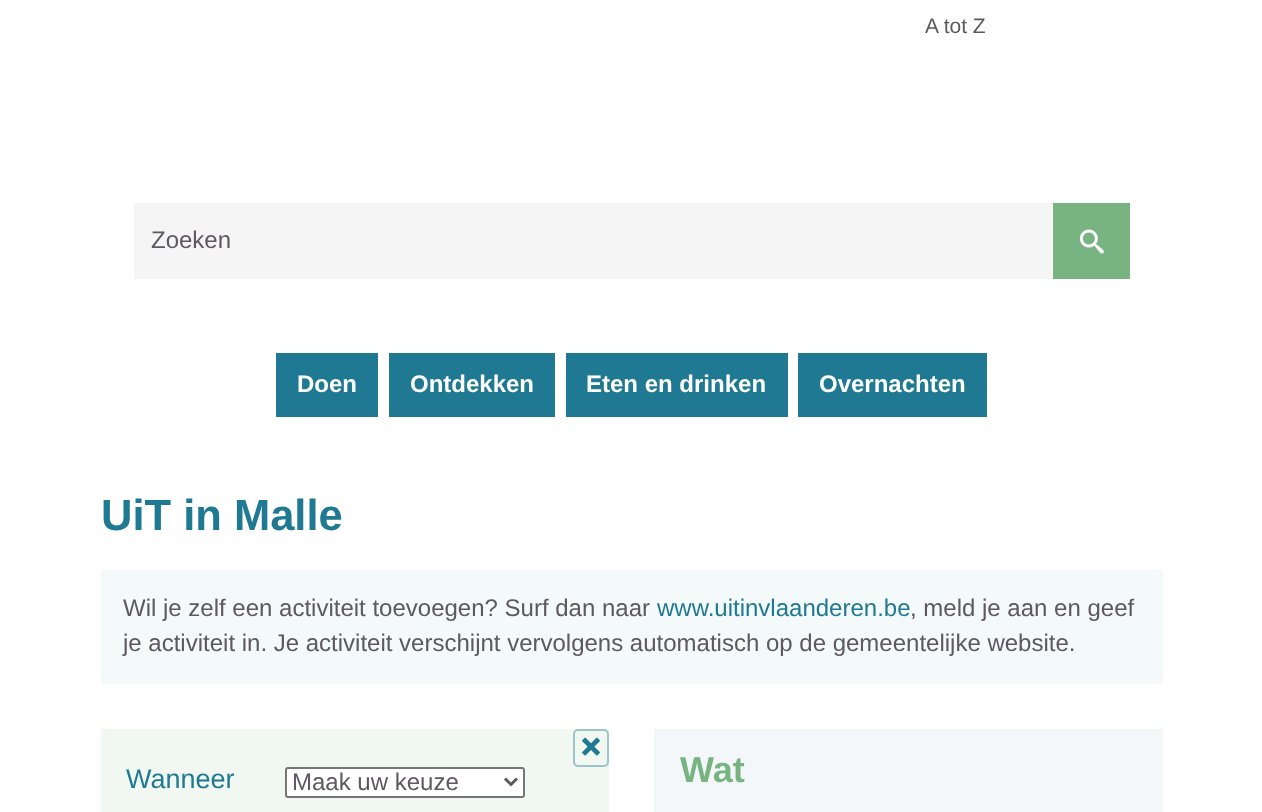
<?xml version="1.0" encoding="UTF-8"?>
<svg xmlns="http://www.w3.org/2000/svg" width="1262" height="812">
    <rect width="100%" height="100%" fill="#FFFFFF"/>
    <rect x="134" y="203" width="919" height="76" fill="#F5F5F5"/>
    <text x="151" y="248" font-family="Liberation Sans" font-size="24" fill="#5E5860">Zoeken</text>
    <rect x="1053" y="203" width="77" height="76" fill="#77B482"/>
    <image x="1079" y="229" width="25" height="25" href="img_01.png"/>
    <text x="925" y="33" font-family="Liberation Sans" font-size="21" fill="#5E5860">A tot Z</text>
    <rect x="276" y="353" width="102" height="64" fill="#1F7993"/>
    <text x="297" y="392" font-family="Liberation Sans" font-size="24" font-weight="700" fill="#FFFFFF">Doen</text>
    <rect x="389" y="353" width="166" height="64" fill="#1F7993"/>
    <text x="410" y="392" font-family="Liberation Sans" font-size="24" font-weight="700" fill="#FFFFFF">Ontdekken</text>
    <rect x="566" y="353" width="222" height="64" fill="#1F7993"/>
    <text x="586" y="392" font-family="Liberation Sans" font-size="24" font-weight="700" fill="#FFFFFF">Eten en drinken</text>
    <rect x="798" y="353" width="189" height="64" fill="#1F7993"/>
    <text x="819" y="392" font-family="Liberation Sans" font-size="24" font-weight="700" fill="#FFFFFF">Overnachten</text>
    <text x="101" y="530" font-family="Liberation Sans" font-size="43.5" font-weight="700" fill="#1F7993">UiT in Malle</text>
    <rect x="101" y="570" width="1062" height="114" fill="#F4F9FA"/>
    <text x="123" y="616" font-family="Liberation Sans" font-size="24" fill="#5E5860">Wil je zelf een activiteit toevoegen? Surf dan naar</text>
    <text x="657" y="616" font-family="Liberation Sans" font-size="24" fill="#1F7993">www.uitinvlaanderen.be</text>
    <text x="910" y="616" font-family="Liberation Sans" font-size="24" fill="#5E5860">, meld je aan en geef</text>
    <text x="123" y="651" font-family="Liberation Sans" font-size="24" fill="#5E5860">je activiteit in. Je activiteit verschijnt vervolgens automatisch op de gemeentelijke website.</text>
    <rect x="102" y="730" width="506" height="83" fill="#F0F8F1" stroke="#F0F8F1" stroke-width="2"/>
    <rect x="574" y="730" width="34" height="36" rx="4" fill="none" stroke="#9CC5CB" stroke-width="2"/>
    <image x="582" y="737" width="18" height="19" href="img_02.png"/>
    <text x="126" y="788" font-family="Liberation Sans" font-size="27" fill="#1F7993">Wanneer</text>
    <rect x="286" y="768" width="238" height="29" rx="2" fill="#FFFFFF" stroke="#767676" stroke-width="2"/>
    <path d="M 505 778.5 L 511 784.5 L 517 778.5" fill="none" stroke="#5E5860" stroke-width="3"/>
    <text x="292" y="790" font-family="Liberation Sans" font-size="24" fill="#5E5860">Maak uw keuze</text>
    <rect x="655" y="730" width="507" height="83" fill="#F4F7F9" stroke="#F0F8F1" stroke-width="2"/>
    <text x="680" y="782" font-family="Liberation Sans" font-size="36" font-weight="700" fill="#77B482">Wat</text>
</svg>
